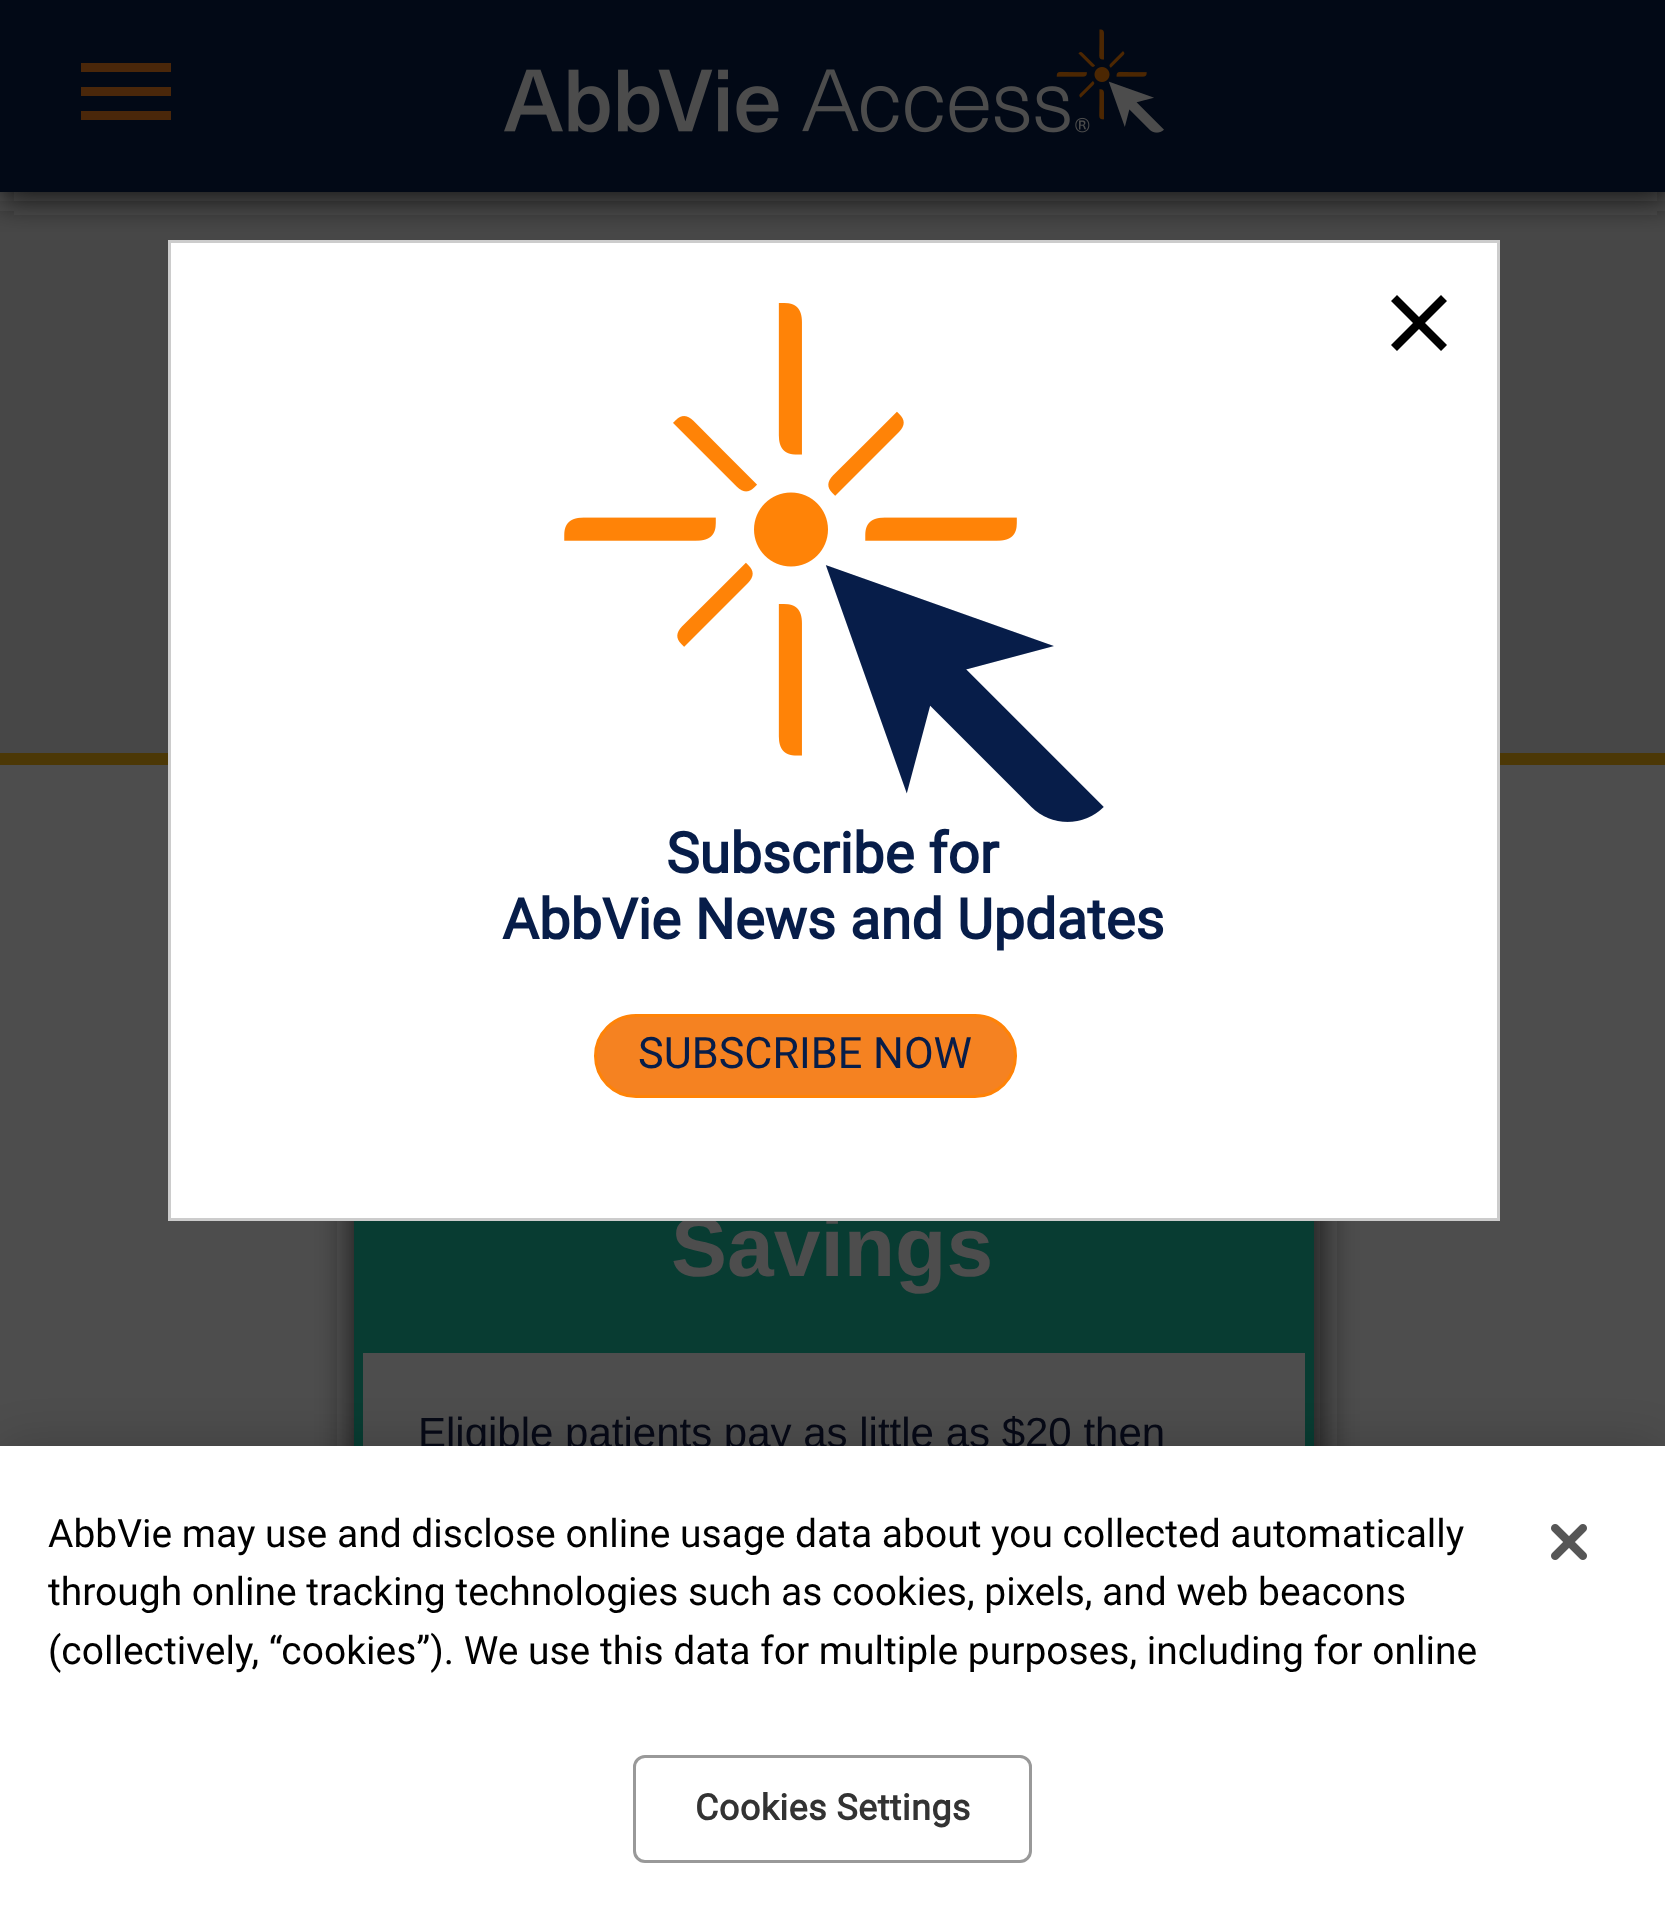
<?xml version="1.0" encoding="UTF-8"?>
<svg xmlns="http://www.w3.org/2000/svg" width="1665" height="1910">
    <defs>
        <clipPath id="clip1"><rect x="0" y="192" width="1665" height="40"/></clipPath>
        <filter id="blur1" x="-50%" y="-200%" width="200%" height="500%"><feGaussianBlur stdDeviation="15"/></filter>
        <filter id="blur2" x="-50%" y="-200%" width="200%" height="500%"><feGaussianBlur stdDeviation="18"/></filter>
        <filter id="blur3" x="-50%" y="-200%" width="200%" height="500%"><feGaussianBlur stdDeviation="27"/></filter>
    </defs>
    <rect width="100%" height="100%" fill="#4D4D4D"/>
    <rect x="0" y="0" width="1665" height="192" fill="#020916"/>
    <rect x="0" y="201" width="1665" height="552" fill="#474747"/>
    <g clip-path="url(#clip1)">
        <rect x="0" y="3" width="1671" height="198" fill="#1D1A1A" filter="url(#blur1)"/>
    </g>
    <rect x="0" y="753" width="1665" height="12" fill="#4C3806"/>
    <rect x="354" y="1146" width="966" height="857" rx="39" fill="#1D1A1A" filter="url(#blur2)"/>
    <rect x="363" y="1353" width="942" height="93" fill="#4D4D4D"/>
    <rect x="358.5" y="1141.5" width="951" height="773" fill="none" stroke="#083C32" stroke-width="9"/>
    <rect x="363" y="1221" width="942" height="132" fill="#083C32"/>
    <text x="671" y="1276" font-family="Liberation Sans" font-size="84" font-weight="700" fill="#4D4D4D">Savings</text>
    <rect x="169.5" y="241.5" width="1329" height="978" fill="#FFFFFF" stroke="#CCCCCC" stroke-width="3"/>
    <path d="M 1447 301 L 1425 323 L 1447 345 L 1441 351 L 1419 329 L 1397 351 L 1391 345 L 1413 323 L 1391 301 L 1397 295 L 1419 317 L 1441 295 Z" fill="#000000"/>
    <image x="564" y="303" width="540" height="519" href="img_01.png"/>
    <text x="666" y="873" font-family="Roboto" font-size="56.2" font-weight="700" fill="#071D49">Subscribe for</text>
    <text x="502" y="939" font-family="Roboto" font-size="56.2" font-weight="700" fill="#071D49">AbbVie News and Updates</text>
    <rect x="595.5" y="1015.5" width="420" height="81" rx="40.5" fill="#F58221" stroke="#FF8307" stroke-width="3"/>
    <text x="638" y="1068" font-family="Roboto" font-size="43.25" fill="#071D49">SUBSCRIBE NOW</text>
    <rect x="81" y="63" width="90" height="9" fill="#4A270A"/>
    <rect x="81" y="87" width="90" height="9" fill="#4A270A"/>
    <rect x="81" y="111" width="90" height="9" fill="#4A270A"/>
    <image x="504" y="29" width="660" height="104" href="img_02.png"/>
    <text x="418" y="1447" font-family="Liberation Sans" font-size="42" fill="#060916">Eligible patients pay as little as $20 then</text>
    <rect x="0" y="1446" width="1665" height="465" fill="#000000" fill-opacity="0.2" filter="url(#blur3)"/>
    <rect x="0" y="1446" width="1665" height="464" fill="#FFFFFF"/>
    <text font-family="Roboto" font-size="39" fill="#000000">
        <tspan x="48" y="1547">AbbVie may use and disclose online usage data about you collected automatically</tspan>
        <tspan x="48" y="1605">through online tracking technologies such as cookies, pixels, and web beacons</tspan>
        <tspan x="48" y="1664">(collectively, “cookies”). We use this data for multiple purposes, including for online</tspan>
    </text>
    <rect x="634.5" y="1756.5" width="396" height="105" rx="10.5" fill="none" stroke="#999999" stroke-width="3"/>
    <text x="695" y="1820" font-family="Roboto" font-size="36" font-weight="700" letter-spacing="0.4" fill="#333333">Cookies Settings</text>
    <image x="1551" y="1524" width="36" height="36" href="img_03.png"/>
</svg>
